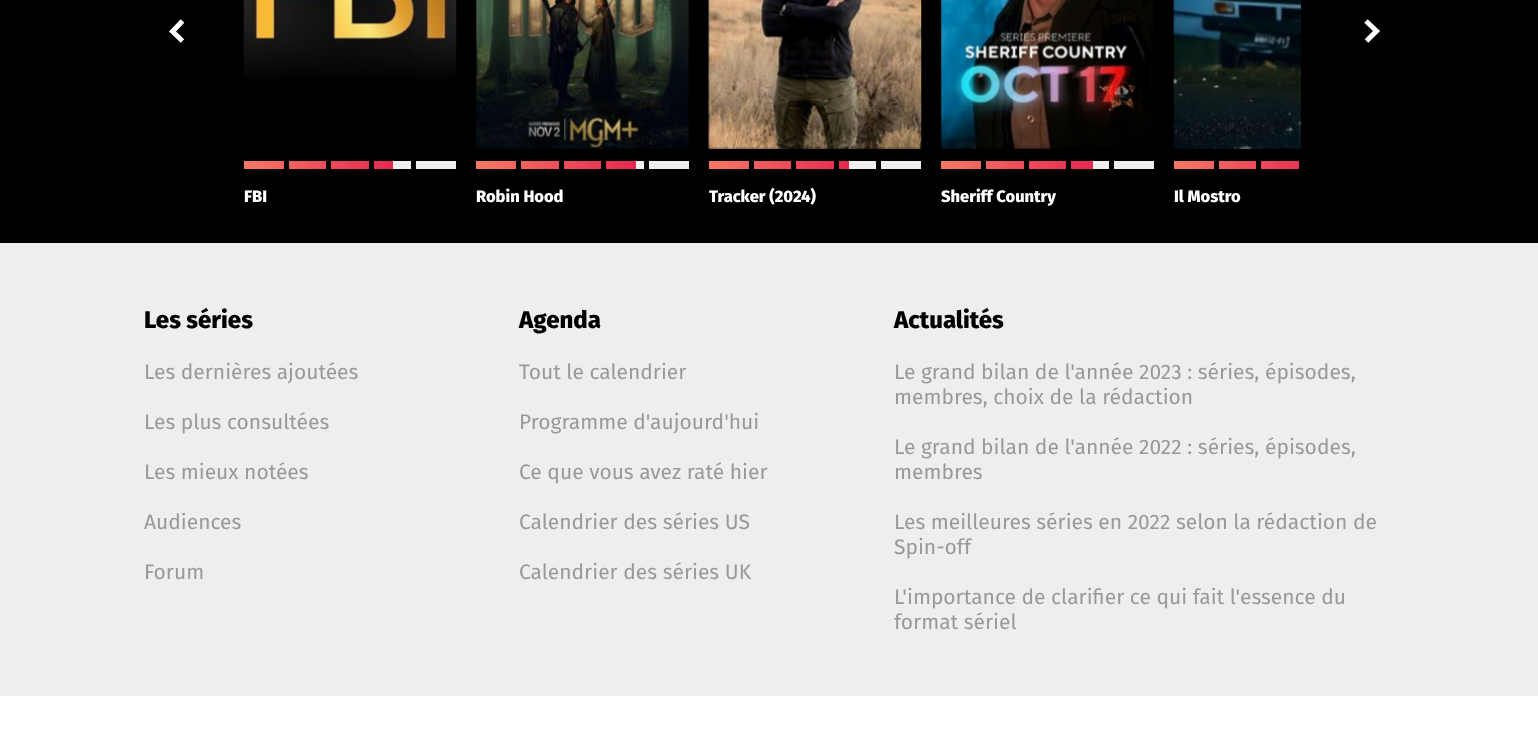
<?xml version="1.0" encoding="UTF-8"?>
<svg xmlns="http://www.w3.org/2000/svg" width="1538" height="747">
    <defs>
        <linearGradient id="g1" gradientUnits="userSpaceOnUse" x1="244" y1="165" x2="393" y2="165"><stop offset="0" stop-color="#F67964"/><stop offset="1" stop-color="#E52951"/></linearGradient>
        <linearGradient id="g2" gradientUnits="userSpaceOnUse" x1="476" y1="165" x2="636" y2="165"><stop offset="0" stop-color="#F67964"/><stop offset="1" stop-color="#E52951"/></linearGradient>
        <linearGradient id="g3" gradientUnits="userSpaceOnUse" x1="709" y1="165" x2="849" y2="165"><stop offset="0" stop-color="#F67964"/><stop offset="1" stop-color="#E52951"/></linearGradient>
        <linearGradient id="g4" gradientUnits="userSpaceOnUse" x1="941" y1="165" x2="1092" y2="165"><stop offset="0" stop-color="#F67964"/><stop offset="1" stop-color="#E52951"/></linearGradient>
        <linearGradient id="g5" gradientUnits="userSpaceOnUse" x1="1174" y1="165" x2="1320" y2="165"><stop offset="0" stop-color="#F67964"/><stop offset="1" stop-color="#E52951"/></linearGradient>
    </defs>
    <rect width="100%" height="100%" fill="#EEEEEE"/>
    <rect x="0" y="0" width="1538" height="243" fill="#000000"/>
    <path d="M 182.5 41 L 172.5 31.5 L 182.5 21" fill="none" stroke="#FFFFFF" stroke-width="5"/>
    <path d="M 1366 21 L 1376.5 31 L 1366.5 41" fill="none" stroke="#FFFFFF" stroke-width="5"/>
    <image x="243" y="0" width="214" height="78" href="img_01.png"/>
    <rect x="393" y="161" width="63" height="8" fill="#EEEEEE"/>
    <rect x="244" y="161" width="149" height="8" fill="url(#g1)"/>
    <rect x="284" y="161" width="5" height="8" fill="#000000"/>
    <rect x="326" y="161" width="5" height="8" fill="#000000"/>
    <rect x="369" y="161" width="5" height="8" fill="#000000"/>
    <rect x="411" y="161" width="5" height="8" fill="#000000"/>
    <text x="244" y="202" font-family="Fira Sans" font-size="16.5" font-weight="800" fill="#FFFFFF">FBI</text>
    <image x="476" y="0" width="214" height="149" href="img_02.png"/>
    <rect x="636" y="161" width="53" height="8" fill="#EEEEEE"/>
    <rect x="476" y="161" width="160" height="8" fill="url(#g2)"/>
    <rect x="516" y="161" width="5" height="8" fill="#000000"/>
    <rect x="559" y="161" width="5" height="8" fill="#000000"/>
    <rect x="601" y="161" width="5" height="8" fill="#000000"/>
    <rect x="644" y="161" width="5" height="8" fill="#000000"/>
    <text x="476" y="202" font-family="Fira Sans" font-size="16.5" font-weight="800" fill="#FFFFFF">Robin Hood</text>
    <image x="708" y="0" width="214" height="149" href="img_03.png"/>
    <rect x="849" y="161" width="72" height="8" fill="#EEEEEE"/>
    <rect x="709" y="161" width="140" height="8" fill="url(#g3)"/>
    <rect x="749" y="161" width="5" height="8" fill="#000000"/>
    <rect x="791" y="161" width="5" height="8" fill="#000000"/>
    <rect x="834" y="161" width="5" height="8" fill="#000000"/>
    <rect x="876" y="161" width="5" height="8" fill="#000000"/>
    <text x="709" y="202" font-family="Fira Sans" font-size="16.5" font-weight="800" fill="#FFFFFF">Tracker (2024)</text>
    <image x="941" y="0" width="213" height="149" href="img_04.png"/>
    <rect x="1093" y="161" width="61" height="8" fill="#EEEEEE"/>
    <rect x="941" y="161" width="152" height="8" fill="url(#g4)"/>
    <rect x="981" y="161" width="5" height="8" fill="#000000"/>
    <rect x="1024" y="161" width="5" height="8" fill="#000000"/>
    <rect x="1066" y="161" width="5" height="8" fill="#000000"/>
    <rect x="1109" y="161" width="5" height="8" fill="#000000"/>
    <text x="941" y="202" font-family="Fira Sans" font-size="16.5" font-weight="800" fill="#FFFFFF">Sheriff Country</text>
    <image x="1173" y="0" width="128" height="149" href="img_05.png"/>
    <rect x="1174" y="161" width="127" height="8" fill="url(#g5)"/>
    <rect x="1214" y="161" width="5" height="8" fill="#000000"/>
    <rect x="1256" y="161" width="5" height="8" fill="#000000"/>
    <rect x="1299" y="161" width="2" height="8" fill="#000000"/>
    <text x="1174" y="202" font-family="Fira Sans" font-size="16.5" font-weight="800" fill="#FFFFFF">Il Mostro</text>
    <text x="144" y="328" font-family="Fira Sans" font-size="24" font-weight="800" fill="#000000">Les séries</text>
    <text x="144" y="379" font-family="Fira Sans" font-size="21" fill="#999999">Les dernières ajoutées</text>
    <text x="144" y="429" font-family="Fira Sans" font-size="21" fill="#999999">Les plus consultées</text>
    <text x="144" y="479" font-family="Fira Sans" font-size="21" fill="#999999">Les mieux notées</text>
    <text x="144" y="529" font-family="Fira Sans" font-size="21" fill="#999999">Audiences</text>
    <text x="144" y="579" font-family="Fira Sans" font-size="21" fill="#999999">Forum</text>
    <text x="519" y="328" font-family="Fira Sans" font-size="24" font-weight="800" fill="#000000">Agenda</text>
    <text x="519" y="379" font-family="Fira Sans" font-size="21" fill="#999999">Tout le calendrier</text>
    <text x="519" y="429" font-family="Fira Sans" font-size="21" fill="#999999">Programme d'aujourd'hui</text>
    <text x="519" y="479" font-family="Fira Sans" font-size="21" fill="#999999">Ce que vous avez raté hier</text>
    <text x="519" y="529" font-family="Fira Sans" font-size="21" fill="#999999">Calendrier des séries US</text>
    <text x="519" y="579" font-family="Fira Sans" font-size="21" fill="#999999">Calendrier des séries UK</text>
    <text x="894" y="328" font-family="Fira Sans" font-size="24" font-weight="800" fill="#000000">Actualités</text>
    <text font-family="Fira Sans" font-size="21" fill="#999999">
        <tspan x="894" y="379">Le grand bilan de l'année 2023 : séries, épisodes,</tspan>
        <tspan x="894" y="404">membres, choix de la rédaction</tspan>
    </text>
    <text font-family="Fira Sans" font-size="21" fill="#999999">
        <tspan x="894" y="454">Le grand bilan de l'année 2022 : séries, épisodes,</tspan>
        <tspan x="894" y="479">membres</tspan>
    </text>
    <text font-family="Fira Sans" font-size="21" fill="#999999">
        <tspan x="894" y="529">Les meilleures séries en 2022 selon la rédaction de</tspan>
        <tspan x="894" y="554">Spin-off</tspan>
    </text>
    <text font-family="Fira Sans" font-size="21" fill="#999999">
        <tspan x="894" y="604">L'importance de clarifier ce qui fait l'essence du</tspan>
        <tspan x="894" y="629">format sériel</tspan>
    </text>
    <rect x="0" y="696" width="1538" height="51" fill="#FFFFFF"/>
</svg>
